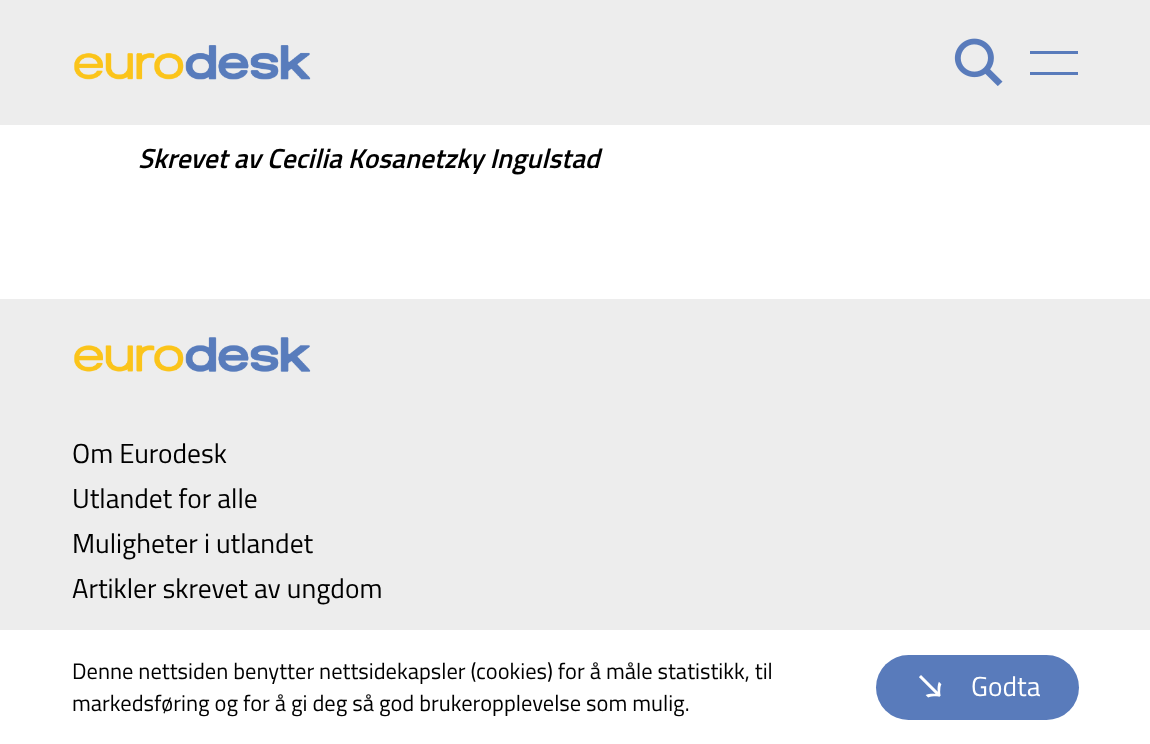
<?xml version="1.0" encoding="UTF-8"?>
<svg xmlns="http://www.w3.org/2000/svg" width="1150" height="744">
    <rect width="100%" height="100%" fill="#FFFFFF"/>
    <rect x="0" y="0" width="1150" height="125" fill="#EDEDED"/>
    <image x="74" y="45" width="237" height="35" href="img_01.png"/>
    <image x="954" y="38" width="49" height="48" href="img_02.png"/>
    <path d="M 1030 51 H 1078 V 54 H 1030 Z M 1030 72 H 1078 V 75 H 1030 Z" fill="#597BBB"/>
    <text x="138" y="168" font-family="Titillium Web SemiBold" font-size="27.5" font-weight="600" font-style="italic" fill="#000000">Skrevet av Cecilia Kosanetzky Ingulstad</text>
    <rect x="0" y="299" width="1150" height="331" fill="#EDEDED"/>
    <image x="74" y="337" width="237" height="35" href="img_03.png"/>
    <text font-family="Titillium Web" font-size="27.5" fill="#000000">
        <tspan x="72" y="463">Om Eurodesk</tspan>
        <tspan x="72" y="508">Utlandet for alle</tspan>
        <tspan x="72" y="553">Muligheter i utlandet</tspan>
        <tspan x="72" y="598">Artikler skrevet av ungdom</tspan>
    </text>
    <text font-family="Titillium Web" font-size="22.5" fill="#000000">
        <tspan x="72" y="679">Denne nettsiden benytter nettsidekapsler (cookies) for å måle statistikk, til</tspan>
        <tspan x="72" y="711">markedsføring og for å gi deg så god brukeropplevelse som mulig.</tspan>
    </text>
    <rect x="876" y="655" width="203" height="65" rx="32.5" fill="#597BBB"/>
    <image x="919" y="675" width="23" height="23" href="img_04.png"/>
    <text x="971" y="696" font-family="Titillium Web" font-size="27.5" fill="#FFFFFF">Godta</text>
</svg>
